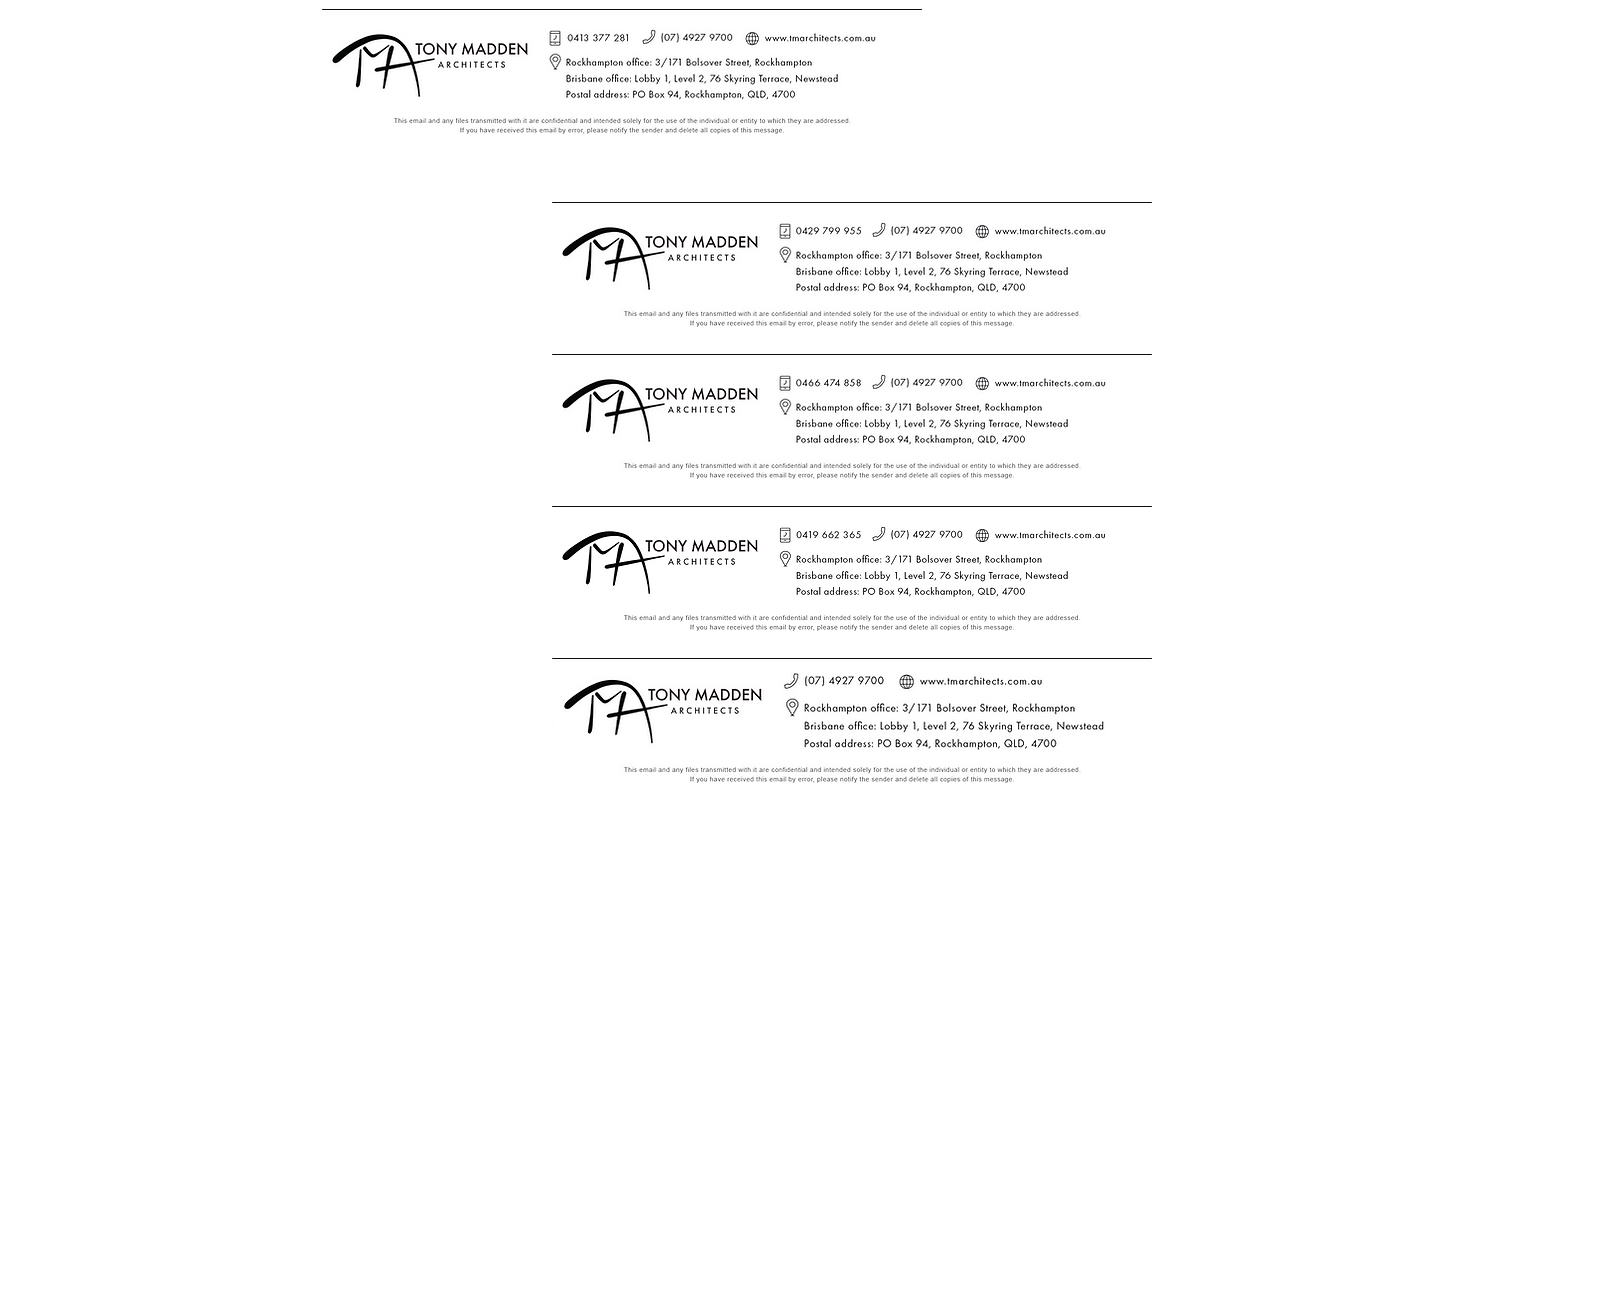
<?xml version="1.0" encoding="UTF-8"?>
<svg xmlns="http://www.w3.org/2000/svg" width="1623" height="1308">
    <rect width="100%" height="100%" fill="#FFFFFF"/>
    <image x="322" y="8" width="600" height="126" href="img_01.png"/>
    <image x="552" y="201" width="600" height="126" href="img_02.png"/>
    <image x="552" y="353" width="600" height="126" href="img_03.png"/>
    <image x="552" y="505" width="600" height="126" href="img_04.png"/>
    <image x="552" y="657" width="600" height="126" href="img_05.png"/>
</svg>
